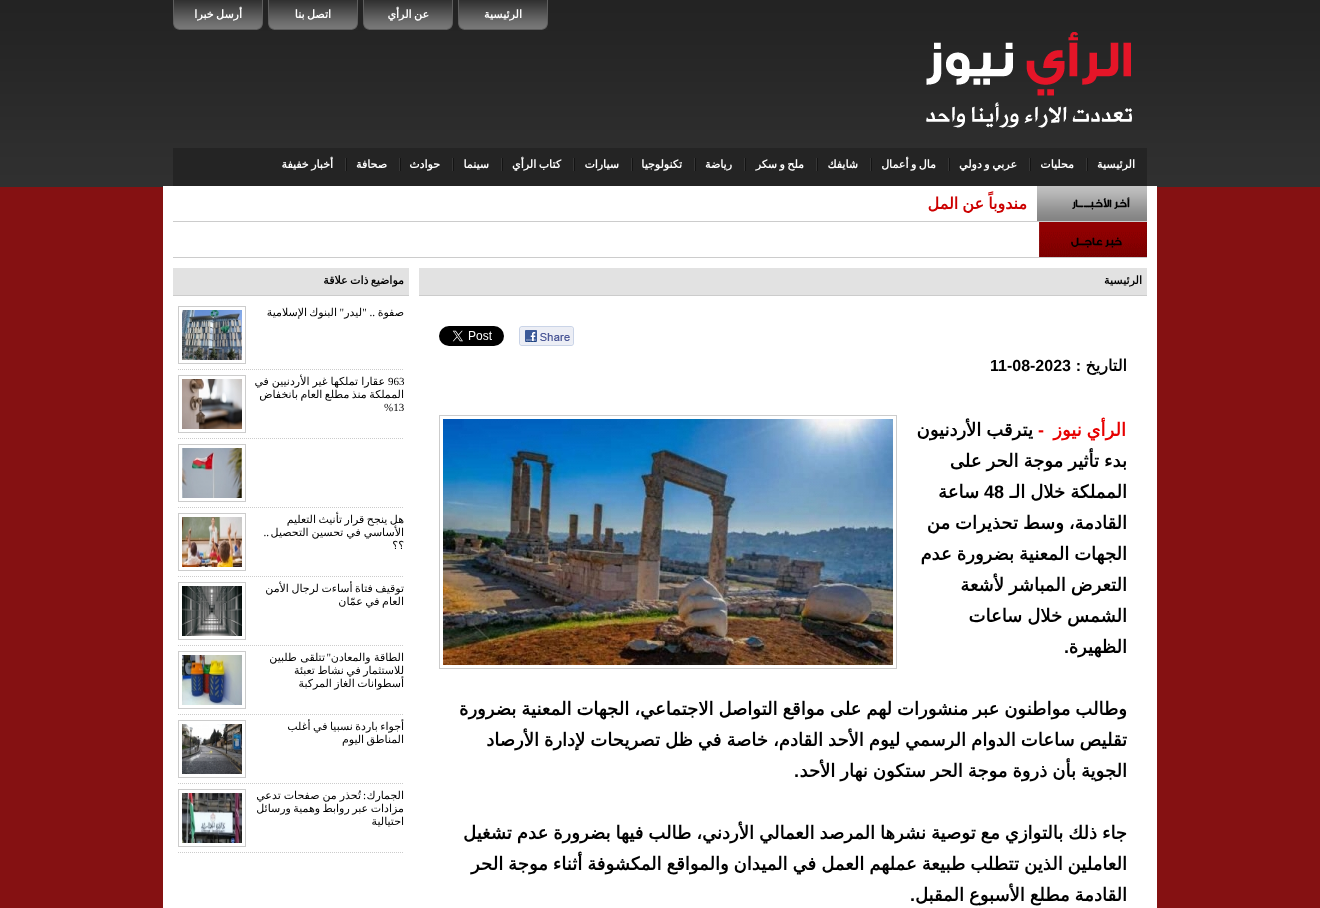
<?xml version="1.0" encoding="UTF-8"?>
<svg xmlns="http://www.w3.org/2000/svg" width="1320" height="908">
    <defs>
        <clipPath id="clip1"><rect x="178" y="370" width="226" height="68"/></clipPath>
        <clipPath id="clip2"><rect x="178" y="508" width="226" height="68"/></clipPath>
        <clipPath id="clip3"><rect x="178" y="577" width="226" height="68"/></clipPath>
        <clipPath id="clip4"><rect x="178" y="646" width="226" height="68"/></clipPath>
        <clipPath id="clip5"><rect x="178" y="715" width="226" height="68"/></clipPath>
        <clipPath id="clip6"><rect x="178" y="784" width="226" height="68"/></clipPath>
    </defs>
    <rect width="100%" height="100%" fill="#851112"/>
    <image x="0" y="0" width="1320" height="187" href="img_01.png"/>
    <image x="458" y="0" width="90" height="30" href="img_02.png"/>
    <text x="522" y="18" font-family="DejaVu Sans" font-size="11" font-weight="700" direction="rtl" fill="#FFFFFF">الرئيسية</text>
    <image x="363" y="0" width="90" height="30" href="img_02.png"/>
    <text x="429" y="18" word-spacing="-1" font-family="DejaVu Sans" font-size="11" font-weight="700" direction="rtl" fill="#FFFFFF">عن الرأي</text>
    <image x="268" y="0" width="90" height="30" href="img_02.png"/>
    <text x="331" y="18" word-spacing="-1" font-family="DejaVu Sans" font-size="11" font-weight="700" direction="rtl" fill="#FFFFFF">اتصل بنا</text>
    <image x="173" y="0" width="90" height="30" href="img_02.png"/>
    <text x="242" y="18" word-spacing="-1" font-family="DejaVu Sans" font-size="11" font-weight="700" direction="rtl" fill="#FFFFFF">أرسل خبرا</text>
    <image x="926" y="32" width="206" height="96" href="img_03.png"/>
    <rect x="173" y="148" width="974" height="38" fill="#242424"/>
    <image x="1086" y="158" width="2" height="13" href="img_04.png"/>
    <text x="1135" y="168" font-family="DejaVu Sans" font-size="11" font-weight="700" direction="rtl" fill="#FFFFFF">الرئيسية</text>
    <image x="1029" y="158" width="2" height="13" href="img_04.png"/>
    <text x="1074" y="168" font-family="DejaVu Sans" font-size="11" font-weight="700" direction="rtl" fill="#FFFFFF">محليات</text>
    <image x="948" y="158" width="2" height="13" href="img_04.png"/>
    <text x="1017" y="168" word-spacing="-1" font-family="DejaVu Sans" font-size="11" font-weight="700" direction="rtl" fill="#FFFFFF">عربي و دولي</text>
    <image x="870" y="158" width="2" height="13" href="img_04.png"/>
    <text x="936" y="168" word-spacing="-1" font-family="DejaVu Sans" font-size="11" font-weight="700" direction="rtl" fill="#FFFFFF">مال و أعمال</text>
    <image x="816" y="158" width="2" height="13" href="img_04.png"/>
    <text x="858" y="168" font-family="DejaVu Sans" font-size="11" font-weight="700" direction="rtl" fill="#FFFFFF">شايفك</text>
    <image x="744" y="158" width="2" height="13" href="img_04.png"/>
    <text x="804" y="168" word-spacing="-1" font-family="DejaVu Sans" font-size="11" font-weight="700" direction="rtl" fill="#FFFFFF">ملح و سكر</text>
    <image x="694" y="158" width="2" height="13" href="img_04.png"/>
    <text x="732" y="168" font-family="DejaVu Sans" font-size="11" font-weight="700" direction="rtl" fill="#FFFFFF">رياضة</text>
    <image x="631" y="158" width="2" height="13" href="img_04.png"/>
    <text x="682" y="168" font-family="DejaVu Sans" font-size="11" font-weight="700" direction="rtl" fill="#FFFFFF">تكنولوجيا</text>
    <image x="573" y="158" width="2" height="13" href="img_04.png"/>
    <text x="619" y="168" font-family="DejaVu Sans" font-size="11" font-weight="700" direction="rtl" fill="#FFFFFF">سيارات</text>
    <image x="501" y="158" width="2" height="13" href="img_04.png"/>
    <text x="561" y="168" word-spacing="-1" font-family="DejaVu Sans" font-size="11" font-weight="700" direction="rtl" fill="#FFFFFF">كتاب الرأي</text>
    <image x="452" y="158" width="2" height="13" href="img_04.png"/>
    <text x="489" y="168" font-family="DejaVu Sans" font-size="11" font-weight="700" direction="rtl" fill="#FFFFFF">سينما</text>
    <image x="399" y="158" width="2" height="13" href="img_04.png"/>
    <text x="440" y="168" font-family="DejaVu Sans" font-size="11" font-weight="700" direction="rtl" fill="#FFFFFF">حوادث</text>
    <image x="345" y="158" width="2" height="13" href="img_04.png"/>
    <text x="387" y="168" font-family="DejaVu Sans" font-size="11" font-weight="700" direction="rtl" fill="#FFFFFF">صحافة</text>
    <text x="333" y="168" word-spacing="-1" font-family="DejaVu Sans" font-size="11" font-weight="700" direction="rtl" fill="#FFFFFF">أخبار خفيفة</text>
    <rect x="163" y="186" width="994" height="722" fill="#FFFFFF"/>
    <rect x="173" y="221" width="974" height="1" fill="#CCCCCC"/>
    <image x="1037" y="186" width="110" height="35" href="img_05.png"/>
    <image x="1072" y="197" width="58" height="13" href="img_06.png"/>
    <text x="1027" y="209" word-spacing="-1" font-family="DejaVu Sans" font-size="16" font-weight="700" direction="rtl" fill="#CC0000">مندوباً عن المل</text>
    <rect x="173" y="257" width="974" height="1" fill="#CCCCCC"/>
    <image x="1039" y="222" width="108" height="35" href="img_07.png"/>
    <rect x="419" y="268" width="728" height="27" fill="#E2E2E2"/>
    <rect x="419" y="295" width="728" height="1" fill="#CCCCCC"/>
    <text x="1142" y="284" font-family="DejaVu Sans" font-size="11" font-weight="700" direction="rtl" fill="#000000">الرئيسية</text>
    <image x="519" y="326" width="55" height="20" href="img_08.png"/>
    <image x="439" y="326" width="65" height="20" href="img_09.png"/>
    <text x="1127" y="371" font-family="DejaVu Sans" font-size="16" font-weight="700" direction="rtl" fill="#000000">التاريخ</text>
    <text x="1081" y="371" font-family="Liberation Sans" font-size="16" font-weight="700" direction="rtl" fill="#000000">:</text>
    <text x="990" y="371" font-family="Liberation Sans" font-size="16" font-weight="700" fill="#000000">11-08-2023</text>
    <rect x="439.5" y="415.5" width="457" height="253" fill="none" stroke="#CCCCCC"/>
    <image x="443" y="419" width="450" height="246" href="img_10.png"/>
    <text x="1126" y="436" word-spacing="-1" font-family="DejaVu Sans" font-size="18" font-weight="700" direction="rtl" fill="#E70000">الرأي نيوز</text>
    <text x="1044" y="436" font-family="Liberation Sans" font-size="18" font-weight="700" direction="rtl" fill="#E70000">-</text>
    <text x="1033" y="436" word-spacing="-0.75" font-family="DejaVu Sans" font-size="18" font-weight="700" direction="rtl" fill="#000000">يترقب الأردنيون</text>
    <text font-family="DejaVu Sans" font-size="18" font-weight="700" direction="rtl" fill="#000000">
        <tspan x="1127" y="467" word-spacing="-0.75">بدء تأثير موجة الحر على</tspan>
        <tspan x="1127" y="498" word-spacing="-0.75">المملكة خلال الـ</tspan>
    </text>
    <text x="984" y="498" font-family="Liberation Sans" font-size="18" font-weight="700" fill="#000000">48</text>
    <text x="979" y="498" font-family="DejaVu Sans" font-size="18" font-weight="700" direction="rtl" fill="#000000">ساعة</text>
    <text font-family="DejaVu Sans" font-size="18" font-weight="700" direction="rtl" fill="#000000">
        <tspan x="1127" y="529" word-spacing="-0.75">القادمة، وسط تحذيرات من</tspan>
        <tspan x="1127" y="560" word-spacing="-0.75">الجهات المعنية بضرورة عدم</tspan>
        <tspan x="1127" y="591" word-spacing="-0.75">التعرض المباشر لأشعة</tspan>
        <tspan x="1127" y="622" word-spacing="-0.75">الشمس خلال ساعات</tspan>
        <tspan x="1127" y="653">الظهيرة</tspan>
    </text>
    <text x="1069" y="653" font-family="Liberation Sans" font-size="18" font-weight="700" direction="rtl" fill="#000000">.</text>
    <text font-family="DejaVu Sans" font-size="18" font-weight="700" direction="rtl" fill="#000000">
        <tspan x="1127" y="715" word-spacing="-0.75">وطالب مواطنون عبر منشورات لهم على مواقع التواصل الاجتماعي، الجهات المعنية بضرورة</tspan>
        <tspan x="1127" y="746" word-spacing="-0.75">تقليص ساعات الدوام الرسمي ليوم الأحد القادم، خاصة في ظل تصريحات لإدارة الأرصاد</tspan>
        <tspan x="1127" y="777" word-spacing="-0.75">الجوية بأن ذروة موجة الحر ستكون نهار الأحد</tspan>
    </text>
    <text x="799" y="777" font-family="Liberation Sans" font-size="18" font-weight="700" direction="rtl" fill="#000000">.</text>
    <text font-family="DejaVu Sans" font-size="18" font-weight="700" direction="rtl" fill="#000000">
        <tspan x="1127" y="839" word-spacing="-0.75">جاء ذلك بالتوازي مع توصية نشرها المرصد العمالي الأردني، طالب فيها بضرورة عدم تشغيل</tspan>
        <tspan x="1127" y="870" word-spacing="-0.75">العاملين الذين تتطلب طبيعة عملهم العمل في الميدان والمواقع المكشوفة أثناء موجة الحر</tspan>
        <tspan x="1127" y="901" word-spacing="-0.75">القادمة مطلع الأسبوع المقبل</tspan>
    </text>
    <text x="915" y="901" font-family="Liberation Sans" font-size="18" font-weight="700" direction="rtl" fill="#000000">.</text>
    <rect x="173" y="268" width="236" height="27" fill="#E2E2E2"/>
    <rect x="173" y="295" width="236" height="1" fill="#CCCCCC"/>
    <text x="404" y="284" word-spacing="-1" font-family="DejaVu Sans" font-size="11" font-weight="700" direction="rtl" fill="#000000">مواضيع ذات علاقة</text>
    <path d="M 178 369.5 H 404" fill="none" stroke="#CCCCCC" stroke-dasharray="1 1"/>
    <text x="404" y="316" font-family="DejaVu Sans" font-size="11" direction="rtl" fill="#000000">صفوة</text>
    <text x="375" y="316" font-family="Liberation Serif" font-size="11" direction="rtl" fill="#000000">.. "</text>
    <text x="344" y="316" font-family="Liberation Serif" font-size="11" direction="rtl" fill="#000000">"</text>
    <text x="362" y="316" font-family="DejaVu Sans" font-size="11" direction="rtl" fill="#000000">ليدر</text>
    <text x="337" y="316" font-family="DejaVu Sans" font-size="11" direction="rtl" fill="#000000">البنوك</text>
    <text x="307" y="316" font-family="DejaVu Sans" font-size="11" direction="rtl" fill="#000000">الإسلامية</text>
    <rect x="178.5" y="306.5" width="67" height="57" fill="none" stroke="#CCCCCC"/>
    <image x="182" y="310" width="60" height="50" href="img_11.png"/>
    <path d="M 178 438.5 H 404" fill="none" stroke="#CCCCCC" stroke-dasharray="1 1"/>
    <text x="388" y="385" font-family="Liberation Serif" font-size="11" fill="#000000">963</text>
    <text x="385" y="385" word-spacing="-0.5" font-family="DejaVu Sans" font-size="11" direction="rtl" fill="#000000">عقارا تملكها غير الأردنيين في</text>
    <rect x="178.5" y="375.5" width="67" height="57" fill="none" stroke="#CCCCCC"/>
    <image x="182" y="379" width="60" height="50" href="img_12.png"/>
    <g clip-path="url(#clip1)">
        <text x="404" y="398" word-spacing="-1" font-family="DejaVu Sans" font-size="11" direction="rtl" fill="#000000">المملكة منذ مطلع العام بانخفاض</text>
    </g>
    <text x="384" y="411" font-family="Liberation Serif" font-size="11" fill="#000000">%13</text>
    <path d="M 178 507.5 H 404" fill="none" stroke="#CCCCCC" stroke-dasharray="1 1"/>
    <rect x="178.5" y="444.5" width="67" height="57" fill="none" stroke="#CCCCCC"/>
    <image x="182" y="448" width="60" height="50" href="img_13.png"/>
    <path d="M 178 576.5 H 404" fill="none" stroke="#CCCCCC" stroke-dasharray="1 1"/>
    <g clip-path="url(#clip2)">
        <text x="404" y="523" word-spacing="-1" font-family="DejaVu Sans" font-size="11" direction="rtl" fill="#000000">هل ينجح قرار تأنيث التعليم</text>
    </g>
    <rect x="178.5" y="513.5" width="67" height="57" fill="none" stroke="#CCCCCC"/>
    <image x="182" y="517" width="60" height="50" href="img_14.png"/>
    <g clip-path="url(#clip2)">
        <text x="404" y="536" word-spacing="-0.5" font-family="DejaVu Sans" font-size="11" direction="rtl" fill="#000000">الأساسي في تحسين التحصيل</text>
    </g>
    <text x="269" y="536" font-family="Liberation Serif" font-size="11" direction="rtl" fill="#000000">..</text>
    <text x="404" y="549" font-family="DejaVu Sans" font-size="11" direction="rtl" fill="#000000">؟؟</text>
    <path d="M 178 645.5 H 404" fill="none" stroke="#CCCCCC" stroke-dasharray="1 1"/>
    <g clip-path="url(#clip3)">
        <text x="404" y="592" word-spacing="-1" font-family="DejaVu Sans" font-size="11" direction="rtl" fill="#000000">توقيف فتاة أساءت لرجال الأمن</text>
    </g>
    <rect x="178.5" y="582.5" width="67" height="57" fill="none" stroke="#CCCCCC"/>
    <image x="182" y="586" width="60" height="50" href="img_15.png"/>
    <g clip-path="url(#clip3)">
        <text x="404" y="605" word-spacing="-1" font-family="DejaVu Sans" font-size="11" direction="rtl" fill="#000000">العام في عمّان</text>
    </g>
    <path d="M 178 714.5 H 404" fill="none" stroke="#CCCCCC" stroke-dasharray="1 1"/>
    <text x="404" y="661" font-family="DejaVu Sans" font-size="11" direction="rtl" fill="#000000">الطاقة والمعادن</text>
    <text x="331" y="661" font-family="Liberation Serif" font-size="11" direction="rtl" fill="#000000">"</text>
    <text x="325" y="661" font-family="DejaVu Sans" font-size="11" direction="rtl" fill="#000000">تتلقى طلبين</text>
    <rect x="178.5" y="651.5" width="67" height="57" fill="none" stroke="#CCCCCC"/>
    <image x="182" y="655" width="60" height="50" href="img_16.png"/>
    <g clip-path="url(#clip4)">
        <text font-family="DejaVu Sans" font-size="11" direction="rtl" fill="#000000">
            <tspan x="404" y="674" word-spacing="-1">للاستثمار في نشاط تعبئة</tspan>
            <tspan x="404" y="687" word-spacing="-1">أسطوانات الغاز المركبة</tspan>
        </text>
    </g>
    <path d="M 178 783.5 H 404" fill="none" stroke="#CCCCCC" stroke-dasharray="1 1"/>
    <g clip-path="url(#clip5)">
        <text x="404" y="730" word-spacing="-1" font-family="DejaVu Sans" font-size="11" direction="rtl" fill="#000000">أجواء باردة نسبيا في أغلب</text>
    </g>
    <rect x="178.5" y="720.5" width="67" height="57" fill="none" stroke="#CCCCCC"/>
    <image x="182" y="724" width="60" height="50" href="img_17.png"/>
    <text x="404" y="743" word-spacing="-1" font-family="DejaVu Sans" font-size="11" direction="rtl" fill="#000000">المناطق اليوم</text>
    <path d="M 178 852.5 H 404" fill="none" stroke="#CCCCCC" stroke-dasharray="1 1"/>
    <text x="404" y="799" font-family="DejaVu Sans" font-size="11" direction="rtl" fill="#000000">الجمارك</text>
    <text x="366" y="799" font-family="Liberation Serif" font-size="11" direction="rtl" fill="#000000">:</text>
    <text x="361" y="799" word-spacing="-0.5" font-family="DejaVu Sans" font-size="11" direction="rtl" fill="#000000">تُحذر من صفحات تدعي</text>
    <rect x="178.5" y="789.5" width="67" height="57" fill="none" stroke="#CCCCCC"/>
    <image x="182" y="793" width="60" height="50" href="img_18.png"/>
    <g clip-path="url(#clip6)">
        <text x="404" y="812" word-spacing="-1" font-family="DejaVu Sans" font-size="11" direction="rtl" fill="#000000">مزادات عبر روابط وهمية ورسائل</text>
    </g>
    <text x="404" y="825" font-family="DejaVu Sans" font-size="11" direction="rtl" fill="#000000">احتيالية</text>
</svg>
